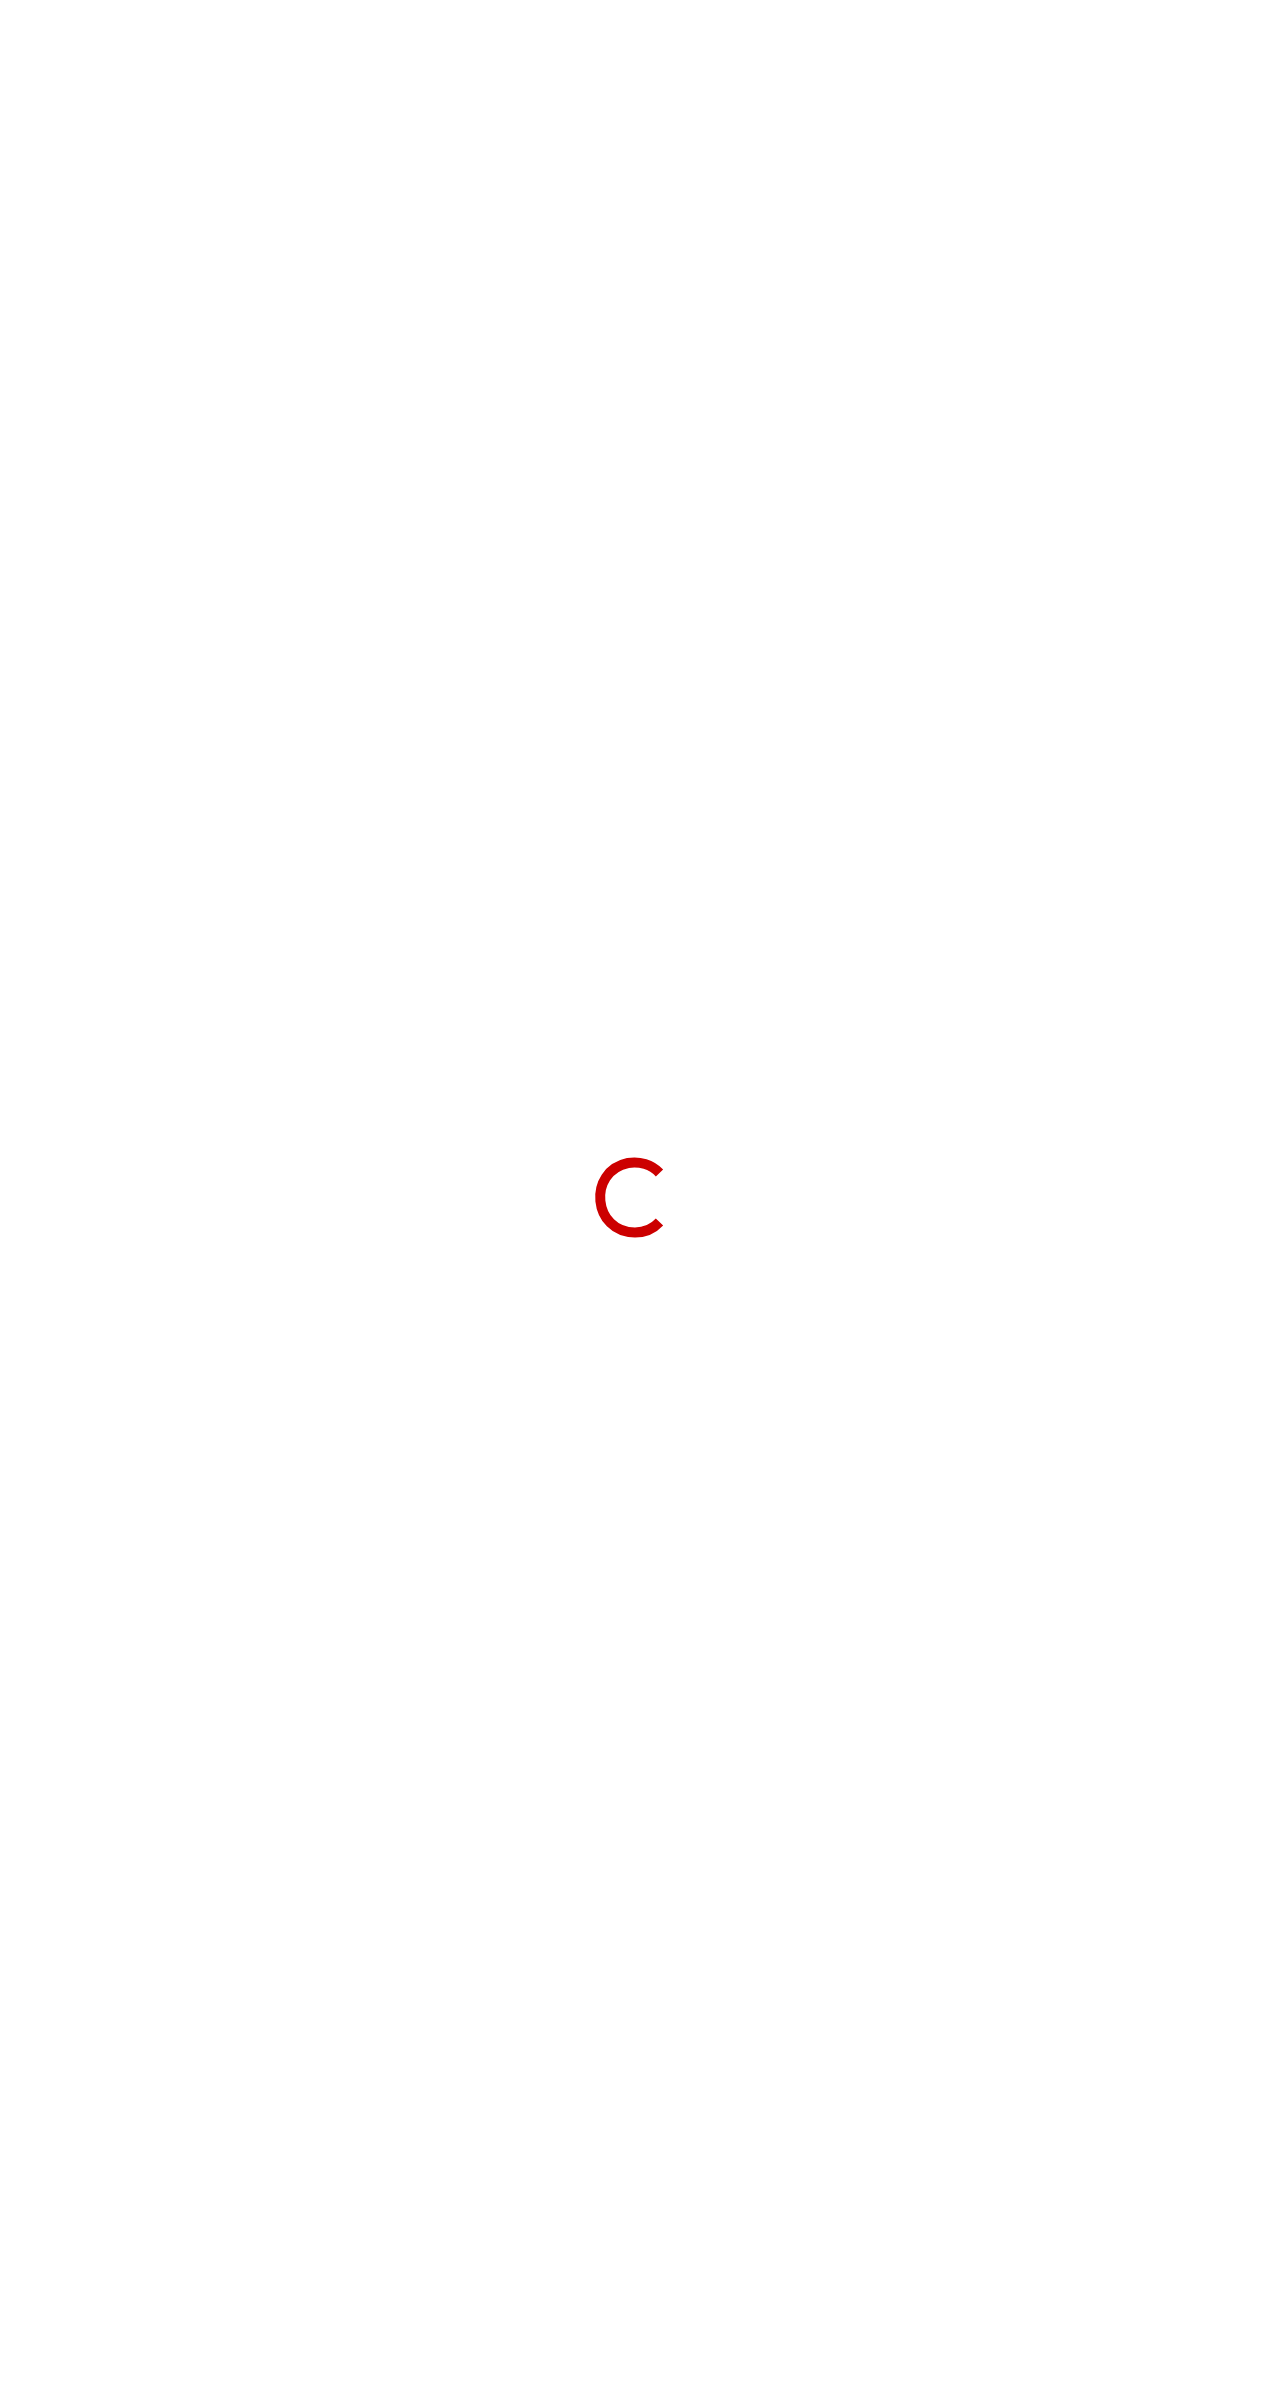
<?xml version="1.0" encoding="UTF-8"?>
<svg xmlns="http://www.w3.org/2000/svg" width="1266" height="2394">
    <rect width="100%" height="100%" fill="#FFFFFF"/>
    <path d="M 659.5 1222 C 653 1229 644 1232.5 635 1232.5 C 593 1232.5 587 1171.5 628 1163 C 639.5 1161 651.5 1164.5 659.5 1173" fill="none" stroke="#CC0000" stroke-width="10"/>
</svg>
